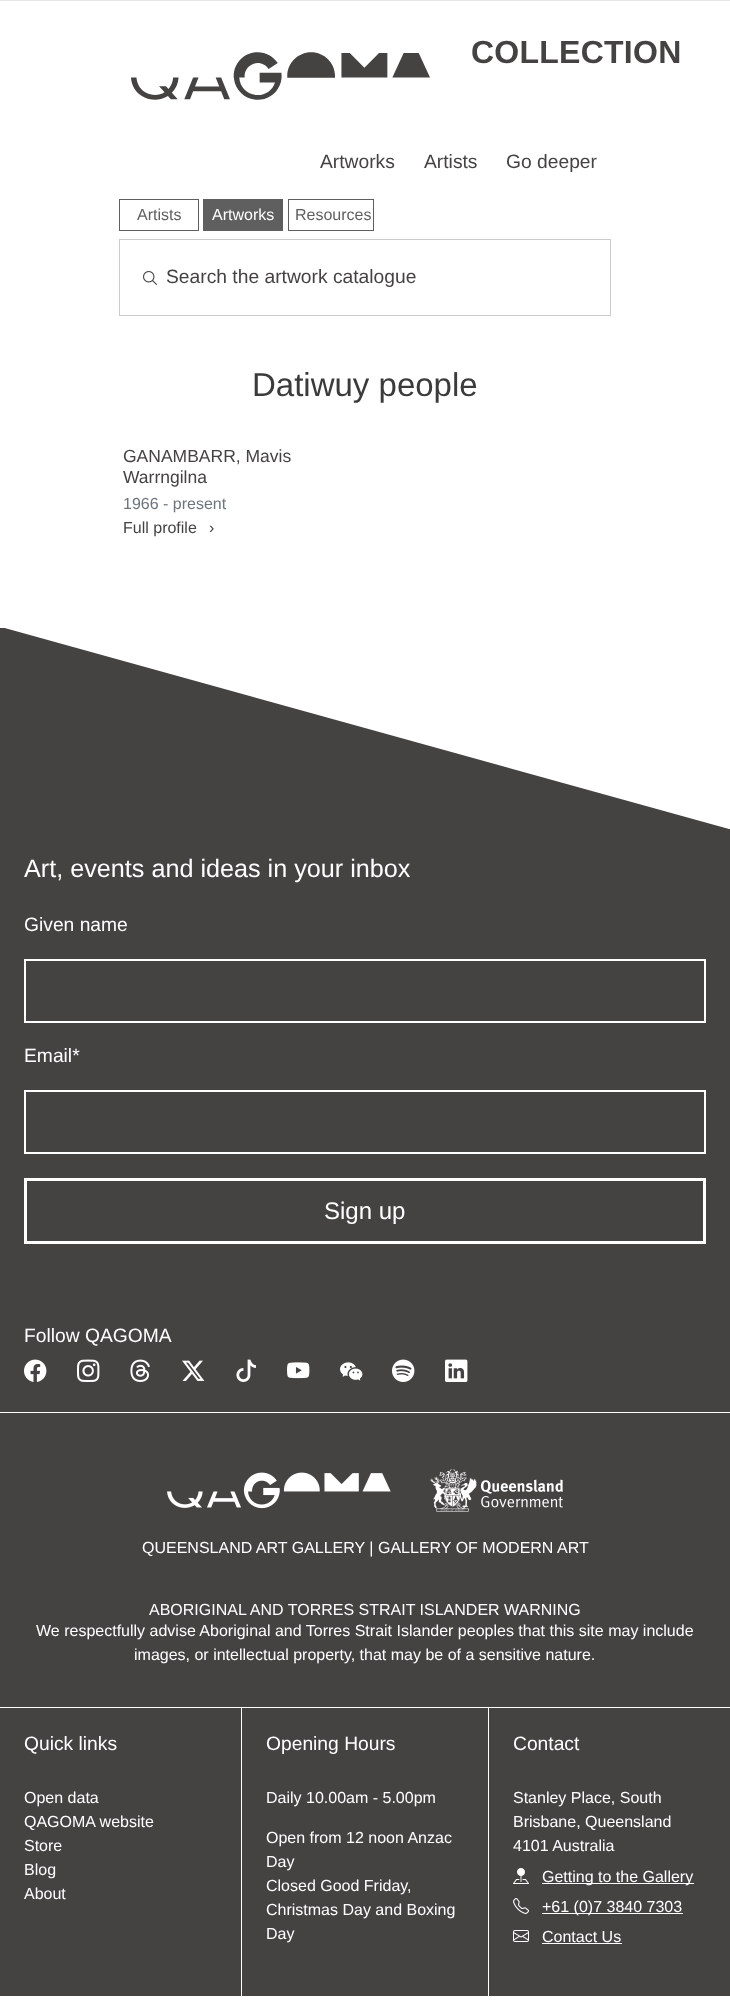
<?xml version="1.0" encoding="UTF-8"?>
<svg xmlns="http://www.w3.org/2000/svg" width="730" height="2013">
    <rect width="100%" height="100%" fill="#FFFFFF"/>
    <rect x="0" y="0" width="730" height="1" fill="#E5E5E5"/>
    <image x="131" y="52" width="299" height="48" href="img_01.png"/>
    <text x="471" y="63" font-family="Liberation Sans" font-size="32" font-weight="700" letter-spacing="0.25" fill="#454242">COLLECTION</text>
    <text x="320" y="168" font-family="Liberation Sans" font-size="19.25" fill="#454242">Artworks</text>
    <text x="424" y="168" font-family="Liberation Sans" font-size="19.25" fill="#454242">Artists</text>
    <text x="506" y="168" font-family="Liberation Sans" font-size="19.25" fill="#454242">Go deeper</text>
    <rect x="119.5" y="199.5" width="79" height="31" fill="none" stroke="#5F5F5F"/>
    <text x="137" y="220" font-family="Liberation Sans" font-size="16" fill="#5F5F5F">Artists</text>
    <rect x="203" y="199" width="80" height="32" fill="#5F5F5F"/>
    <text x="212" y="220" font-family="Liberation Sans" font-size="16" fill="#FFFFFF">Artworks</text>
    <rect x="288.5" y="199.5" width="85" height="31" fill="none" stroke="#5F5F5F"/>
    <text x="295" y="220" font-family="Liberation Sans" font-size="16" fill="#5F5F5F">Resources</text>
    <rect x="119.5" y="239.5" width="491" height="76" fill="none" stroke="#CCCCCC"/>
    <image x="143" y="271" width="14" height="14" href="img_02.png"/>
    <text x="166" y="283" font-family="Liberation Sans" font-size="19.25" fill="#454242">Search the artwork catalogue</text>
    <text x="252" y="396" font-family="Liberation Sans" font-size="33" fill="#3B3B3B">Datiwuy people</text>
    <text font-family="Liberation Sans" font-size="17.5" fill="#454242">
        <tspan x="123" y="462">GANAMBARR, Mavis</tspan>
        <tspan x="123" y="483">Warrngilna</tspan>
    </text>
    <text x="123" y="509" font-family="Liberation Sans" font-size="16" fill="#6C757D">1966 - present</text>
    <text x="123" y="533" font-family="Liberation Sans" font-size="16" fill="#454242">Full profile</text>
    <text x="209" y="533" font-family="Liberation Sans" font-size="16" fill="#454242">›</text>
    <rect x="0" y="628" width="730" height="1368" fill="#454242"/>
    <path d="M 730 627 H 1 L 729 829 H 730 Z" fill="#FFFFFF"/>
    <rect x="0" y="1412" width="730" height="1" fill="#FFFFFF"/>
    <text x="24" y="877" font-family="Liberation Sans" font-size="25.2" fill="#FFFFFF">Art, events and ideas in your inbox</text>
    <text x="24" y="931" font-family="Liberation Sans" font-size="19.25" fill="#FFFFFF">Given name</text>
    <rect x="25" y="960" width="680" height="62" fill="none" stroke="#FFFFFF" stroke-width="2"/>
    <text x="24" y="1062" font-family="Liberation Sans" font-size="19.25" fill="#FFFFFF">Email*</text>
    <rect x="25" y="1091" width="680" height="62" fill="none" stroke="#FFFFFF" stroke-width="2"/>
    <rect x="25.5" y="1179.5" width="679" height="63" fill="none" stroke="#FFFFFF" stroke-width="3"/>
    <text x="324" y="1219" font-family="Liberation Sans" font-size="24" fill="#FFFFFF">Sign up</text>
    <text x="24" y="1342" font-family="Liberation Sans" font-size="19.25" fill="#FFFFFF">Follow QAGOMA</text>
    <image x="24" y="1359" width="23" height="23" href="img_03.png"/>
    <image x="77" y="1359" width="23" height="23" href="img_04.png"/>
    <image x="130" y="1359" width="20" height="23" href="img_05.png"/>
    <image x="182" y="1360" width="23" height="21" href="img_06.png"/>
    <image x="236" y="1359" width="20" height="23" href="img_07.png"/>
    <image x="287" y="1362" width="23" height="17" href="img_08.png"/>
    <image x="340" y="1362" width="23" height="19" href="img_09.png"/>
    <image x="392" y="1359" width="23" height="23" href="img_10.png"/>
    <image x="445" y="1359" width="23" height="23" href="img_11.png"/>
    <rect x="0" y="1707" width="730" height="1" fill="#FFFFFF"/>
    <image x="167" y="1469" width="396" height="43" href="img_12.png"/>
    <text x="142" y="1553" font-family="Liberation Sans" font-size="16" fill="#FFFFFF">QUEENSLAND ART GALLERY | GALLERY OF MODERN ART</text>
    <text x="149" y="1615" font-family="Liberation Sans" font-size="16" fill="#FFFFFF">ABORIGINAL AND TORRES STRAIT ISLANDER WARNING</text>
    <text x="36" y="1636" font-family="Liberation Sans" font-size="16" fill="#FFFFFF">We respectfully advise Aboriginal and Torres Strait Islander peoples that this site may include</text>
    <text x="134" y="1660" font-family="Liberation Sans" font-size="16" fill="#FFFFFF">images, or intellectual property, that may be of a sensitive nature.</text>
    <text x="24" y="1750" font-family="Liberation Sans" font-size="19.25" fill="#FFFFFF">Quick links</text>
    <text font-family="Liberation Sans" font-size="16" fill="#FFFFFF">
        <tspan x="24" y="1803">Open data</tspan>
        <tspan x="24" y="1827">QAGOMA website</tspan>
        <tspan x="24" y="1851">Store</tspan>
        <tspan x="24" y="1875">Blog</tspan>
        <tspan x="24" y="1899">About</tspan>
    </text>
    <rect x="488" y="1708" width="1" height="289" fill="#FFFFFF"/>
    <rect x="241" y="1708" width="1" height="289" fill="#FFFFFF"/>
    <text x="266" y="1750" font-family="Liberation Sans" font-size="19.25" fill="#FFFFFF">Opening Hours</text>
    <text x="266" y="1803" font-family="Liberation Sans" font-size="16" fill="#FFFFFF">Daily 10.00am - 5.00pm</text>
    <text font-family="Liberation Sans" font-size="16" fill="#FFFFFF">
        <tspan x="266" y="1843">Open from 12 noon Anzac</tspan>
        <tspan x="266" y="1867">Day</tspan>
        <tspan x="266" y="1891">Closed Good Friday,</tspan>
        <tspan x="266" y="1915">Christmas Day and Boxing</tspan>
        <tspan x="266" y="1939">Day</tspan>
    </text>
    <text x="513" y="1750" font-family="Liberation Sans" font-size="19.25" fill="#FFFFFF">Contact</text>
    <text font-family="Liberation Sans" font-size="16" fill="#FFFFFF">
        <tspan x="513" y="1803">Stanley Place, South</tspan>
        <tspan x="513" y="1827">Brisbane, Queensland</tspan>
        <tspan x="513" y="1851">4101 Australia</tspan>
    </text>
    <image x="513" y="1868" width="16" height="16" href="img_13.png"/>
    <rect x="542" y="1883" width="152" height="1" fill="#FFFFFF"/>
    <text x="542" y="1882" font-family="Liberation Sans" font-size="16" fill="#FFFFFF">Getting to the Gallery</text>
    <image x="513" y="1898" width="16" height="16" href="img_14.png"/>
    <rect x="542" y="1913" width="141" height="1" fill="#FFFFFF"/>
    <text x="542" y="1912" font-family="Liberation Sans" font-size="16" fill="#FFFFFF">+61 (0)7 3840 7303</text>
    <image x="513" y="1930" width="16" height="12" href="img_15.png"/>
    <text x="542" y="1942" font-family="Liberation Sans" font-size="16" fill="#FFFFFF">Contact Us</text>
    <rect x="542" y="1943" width="80" height="1" fill="#FFFFFF"/>
</svg>
